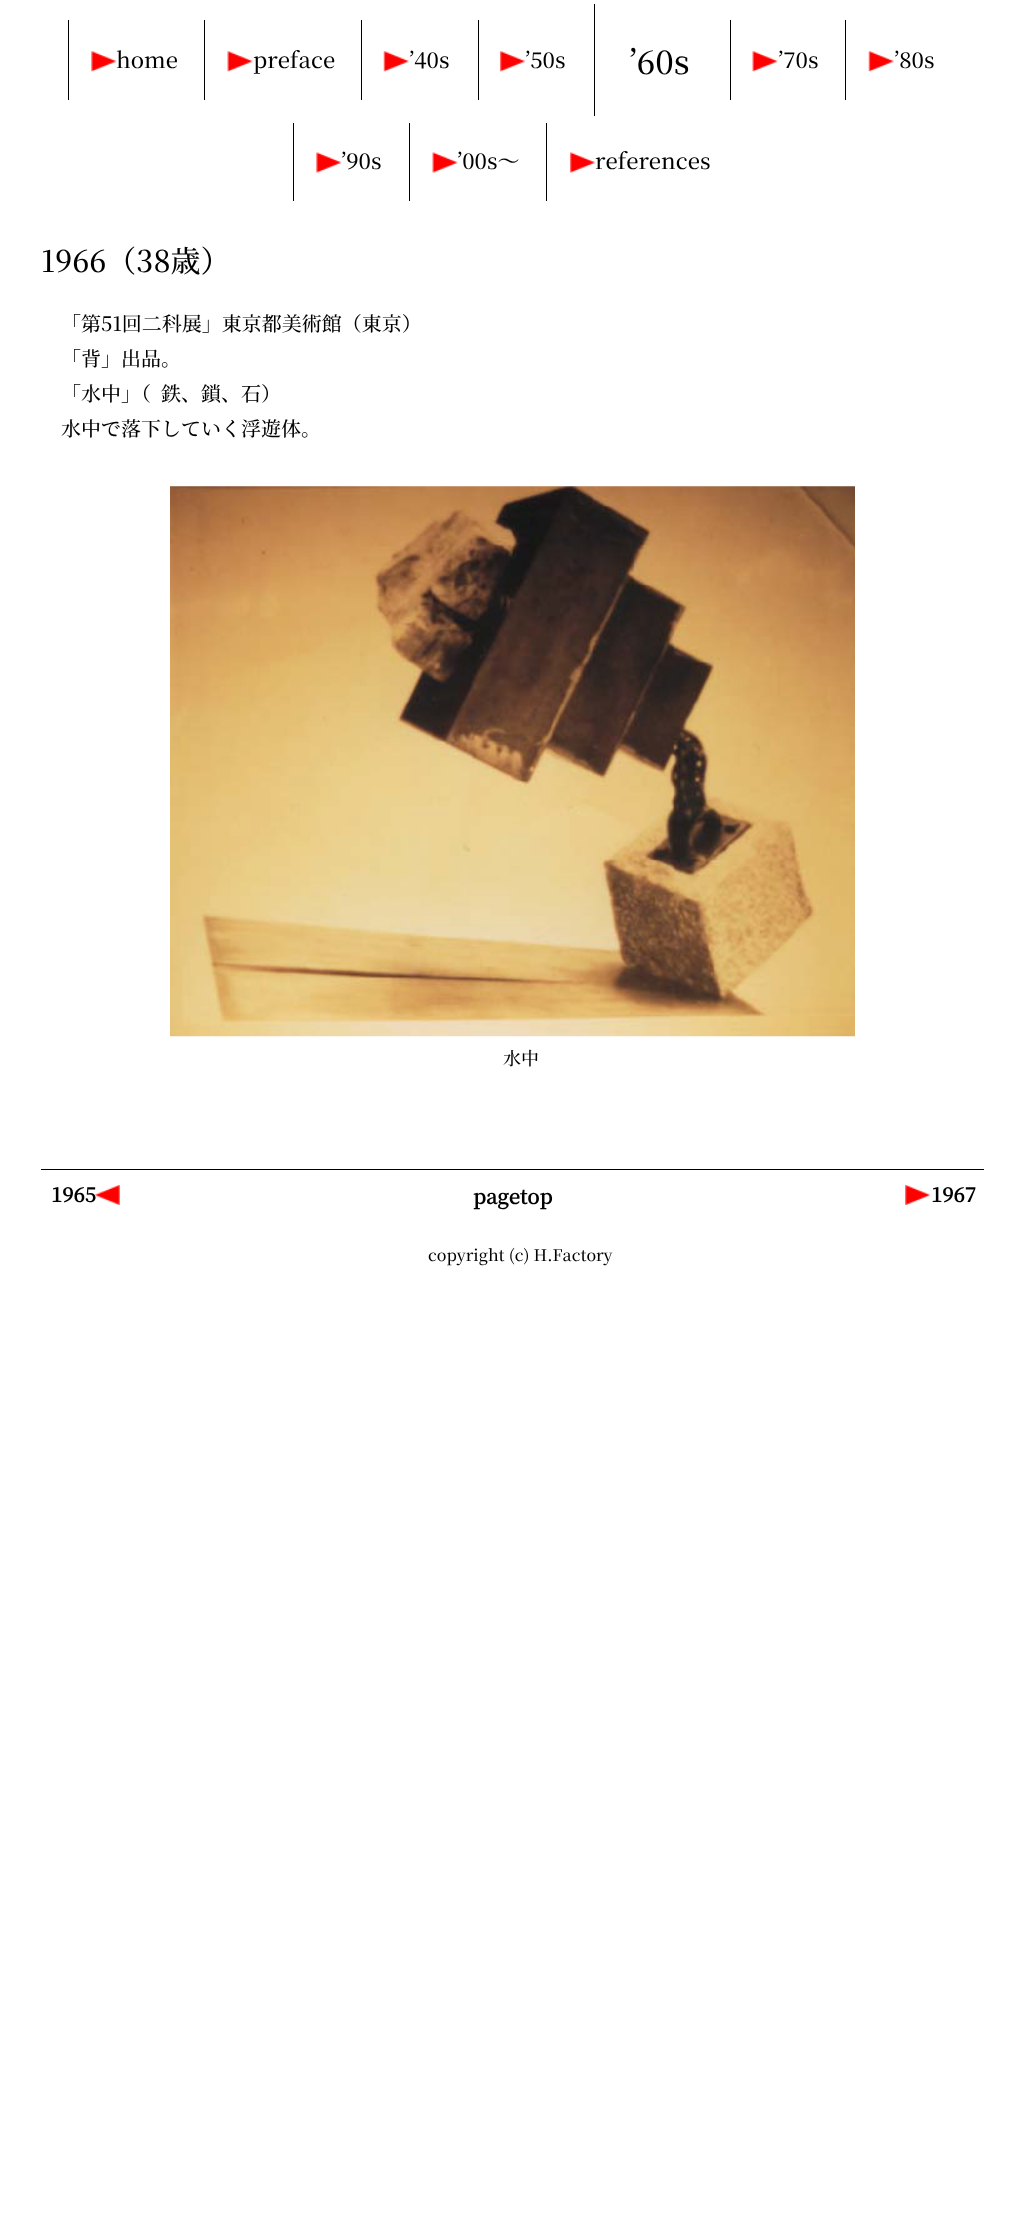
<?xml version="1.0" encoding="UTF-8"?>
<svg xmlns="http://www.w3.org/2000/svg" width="1025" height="2215">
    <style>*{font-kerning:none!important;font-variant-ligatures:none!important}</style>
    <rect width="100%" height="100%" fill="#FFFFFF"/>
    <rect x="68" y="20" width="1" height="80" fill="#000000"/>
    <image x="91" y="51" width="26" height="21" href="img_01.png"/>
    <text x="116" y="68" font-family="Noto Serif JP" font-size="22" font-weight="200" fill="#000000">home</text>
    <rect x="204" y="20" width="1" height="80" fill="#000000"/>
    <image x="227" y="51" width="26" height="21" href="img_02.png"/>
    <text x="253" y="68" font-family="Noto Serif JP" font-size="22" font-weight="200" fill="#000000">preface</text>
    <rect x="361" y="20" width="1" height="80" fill="#000000"/>
    <image x="383" y="51" width="26" height="21" href="img_03.png"/>
    <text x="409" y="68" font-family="Noto Serif JP" font-size="22" font-weight="200" fill="#000000">’40s</text>
    <rect x="478" y="20" width="1" height="80" fill="#000000"/>
    <image x="500" y="51" width="25" height="21" href="img_04.png"/>
    <text x="525" y="68" font-family="Noto Serif JP" font-size="22" font-weight="200" fill="#000000">’50s</text>
    <rect x="594" y="4" width="1" height="112" fill="#000000"/>
    <text x="629" y="74" font-family="Noto Serif JP" font-size="33" font-weight="200" fill="#000000">’60s</text>
    <rect x="730" y="20" width="1" height="80" fill="#000000"/>
    <image x="752" y="51" width="26" height="21" href="img_02.png"/>
    <text x="778" y="68" font-family="Noto Serif JP" font-size="22" font-weight="200" fill="#000000">’70s</text>
    <rect x="845" y="20" width="1" height="80" fill="#000000"/>
    <image x="868" y="51" width="26" height="21" href="img_03.png"/>
    <text x="894" y="68" font-family="Noto Serif JP" font-size="22" font-weight="200" fill="#000000">’80s</text>
    <rect x="293" y="123" width="1" height="78" fill="#000000"/>
    <image x="316" y="152" width="26" height="21" href="img_05.png"/>
    <text x="341" y="169" font-family="Noto Serif JP" font-size="22" font-weight="200" fill="#000000">’90s</text>
    <rect x="409" y="123" width="1" height="78" fill="#000000"/>
    <image x="432" y="152" width="26" height="21" href="img_06.png"/>
    <text x="457" y="169" font-family="Noto Serif JP" font-size="22" font-weight="200" fill="#000000">’00s～</text>
    <rect x="546" y="123" width="1" height="78" fill="#000000"/>
    <image x="570" y="152" width="25" height="21" href="img_07.png"/>
    <text x="595" y="169" font-family="Noto Serif JP" font-size="22" font-weight="200" fill="#000000">references</text>
    <text x="41" y="272" font-family="Noto Serif JP" font-size="30" font-weight="200" fill="#000000">1966（38歳）</text>
    <text font-family="Noto Serif JP" font-size="20" font-weight="200" fill="#000000">
        <tspan x="61" y="331">「第51回二科展」東京都美術館（東京）</tspan>
        <tspan x="61" y="366">「背」出品。</tspan>
        <tspan x="61" y="401">「水中」（</tspan>
    </text>
    <text x="161" y="401" font-family="Noto Serif JP" font-size="20" font-weight="200" fill="#000000">鉄、鎖、石）</text>
    <text x="61" y="436" font-family="Noto Serif JP" font-size="20" font-weight="200" fill="#000000">水中で落下していく浮遊体。</text>
    <image x="170" y="486" width="685" height="551" href="img_08.png"/>
    <text x="503" y="1065" font-family="Noto Serif JP" font-size="18" font-weight="200" fill="#000000">水中</text>
    <rect x="41" y="1169" width="943" height="1" fill="#000000"/>
    <text x="51" y="1202" font-family="Noto Serif JP" font-size="20" font-weight="700" fill="#000000">1965</text>
    <image x="95" y="1185" width="25" height="20" href="img_09.png"/>
    <text x="473" y="1204" font-family="Noto Serif JP" font-size="20" font-weight="700" fill="#000000">pagetop</text>
    <image x="905" y="1185" width="25" height="20" href="img_10.png"/>
    <text x="931" y="1202" font-family="Noto Serif JP" font-size="20" font-weight="700" fill="#000000">1967</text>
    <text x="428" y="1261" font-family="Noto Serif JP" font-size="16" font-weight="200" fill="#000000">copyright (c) H.Factory</text>
</svg>
